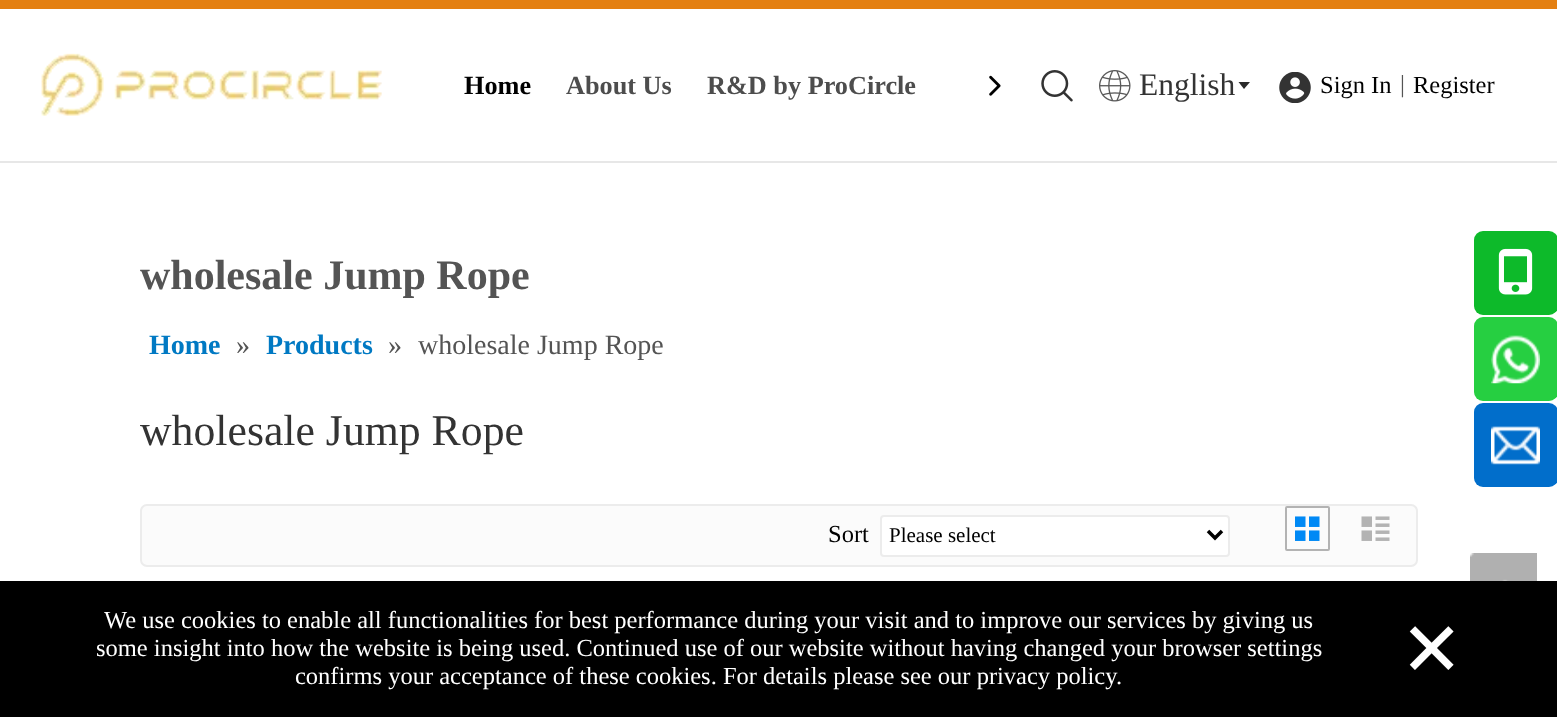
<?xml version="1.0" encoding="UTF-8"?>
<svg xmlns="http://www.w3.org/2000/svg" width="1557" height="717">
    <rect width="100%" height="100%" fill="#FFFFFF"/>
    <rect x="0" y="0" width="1557" height="9" fill="#E48012"/>
    <rect x="0" y="161" width="1557" height="2" fill="#E7E7E7"/>
    <image x="41" y="53" width="341" height="63" href="img_01.png"/>
    <text x="464" y="94" font-family="Liberation Serif" font-size="26.25" font-weight="700" fill="#000000">Home</text>
    <text x="566" y="94" font-family="Liberation Serif" font-size="26.25" font-weight="700" fill="#4D4D4D">About Us</text>
    <text x="707" y="94" font-family="Liberation Serif" font-size="26.25" font-weight="700" fill="#4D4D4D">R&amp;D by ProCircle</text>
    <image x="989" y="75" width="12" height="21" href="img_02.png"/>
    <image x="1041" y="70" width="32" height="32" href="img_03.png"/>
    <image x="1099" y="70" width="32" height="32" href="img_04.png"/>
    <text x="1139" y="95" font-family="Liberation Serif" font-size="31.5" fill="#333333">English</text>
    <path d="M 1244 89 L 1250 82 H 1238.5 Z" fill="#2A2A2A" fill-rule="evenodd"/>
    <image x="1279" y="72" width="32" height="31" href="img_05.png"/>
    <text x="1320" y="93" font-family="Liberation Serif" font-size="24.5" fill="#000000">Sign In</text>
    <text x="1400" y="92" font-family="Liberation Serif" font-size="24.5" fill="#545454">|</text>
    <text x="1413" y="93" font-family="Liberation Serif" font-size="24.5" fill="#000000">Register</text>
    <text x="140" y="289" font-family="Liberation Serif" font-size="42" font-weight="700" fill="#545454">wholesale Jump Rope</text>
    <text x="149" y="354" font-family="Liberation Serif" font-size="28" font-weight="700" fill="#0079C3">Home</text>
    <text x="236" y="354" font-family="Liberation Serif" font-size="28" fill="#545454">»</text>
    <text x="266" y="354" font-family="Liberation Serif" font-size="28" font-weight="700" fill="#0079C3">Products</text>
    <text x="388" y="354" font-family="Liberation Serif" font-size="28" fill="#545454">»</text>
    <text x="418" y="354" font-family="Liberation Serif" font-size="28" fill="#545454">wholesale Jump Rope</text>
    <text x="140" y="445" font-family="Liberation Serif" font-size="43.75" fill="#333333">wholesale Jump Rope</text>
    <rect x="141" y="505" width="1276" height="61" rx="6" fill="#FBFBFB" stroke="#ECECEC" stroke-width="2"/>
    <text x="828" y="542" font-family="Liberation Serif" font-size="24.5" fill="#000000">Sort</text>
    <rect x="881" y="516" width="348" height="40" rx="3" fill="#FFFFFF" stroke="#ECECEC" stroke-width="2"/>
    <path d="M 1208 531 L 1215 538 L 1222 531" fill="none" stroke="#000000" stroke-width="3.5"/>
    <text x="889" y="542" font-family="Liberation Serif" font-size="21" fill="#000000">Please select</text>
    <rect x="1286" y="507" width="43" height="43" rx="1" fill="none" stroke="#B3B3B3" stroke-width="2"/>
    <image x="1295" y="516" width="25" height="25" href="img_06.png"/>
    <image x="1361" y="516" width="29" height="25" href="img_07.png"/>
    <rect x="1474" y="231" width="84" height="84" rx="9" fill="#0DBA2A"/>
    <image x="1498" y="248" width="35" height="47" href="img_08.png"/>
    <rect x="1474" y="317" width="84" height="84" rx="9" fill="#26CF41"/>
    <image x="1491" y="335" width="49" height="49" href="img_09.png"/>
    <rect x="1474" y="403" width="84" height="84" rx="9" fill="#016ECB"/>
    <image x="1491" y="426" width="49" height="39" href="img_10.png"/>
    <image x="1470" y="553" width="67" height="28" href="img_11.png"/>
    <rect x="0" y="581" width="1557" height="136" fill="#000000"/>
    <text x="104" y="628" font-family="Liberation Serif" font-size="24.5" fill="#FFFFFF">We use cookies to enable all functionalities for best performance during your visit and to improve our services by giving us</text>
    <text x="96" y="656" font-family="Liberation Serif" font-size="24.5" fill="#FFFFFF">some insight into how the website is being used. Continued use of our website without having changed your browser settings</text>
    <text x="295" y="684" font-family="Liberation Serif" font-size="24.5" fill="#FFFFFF">confirms your acceptance of these cookies. For details please see our privacy policy.</text>
    <text x="1402" y="683" font-family="Liberation Serif" font-size="105" font-weight="700" fill="#FFFFFF">×</text>
</svg>
